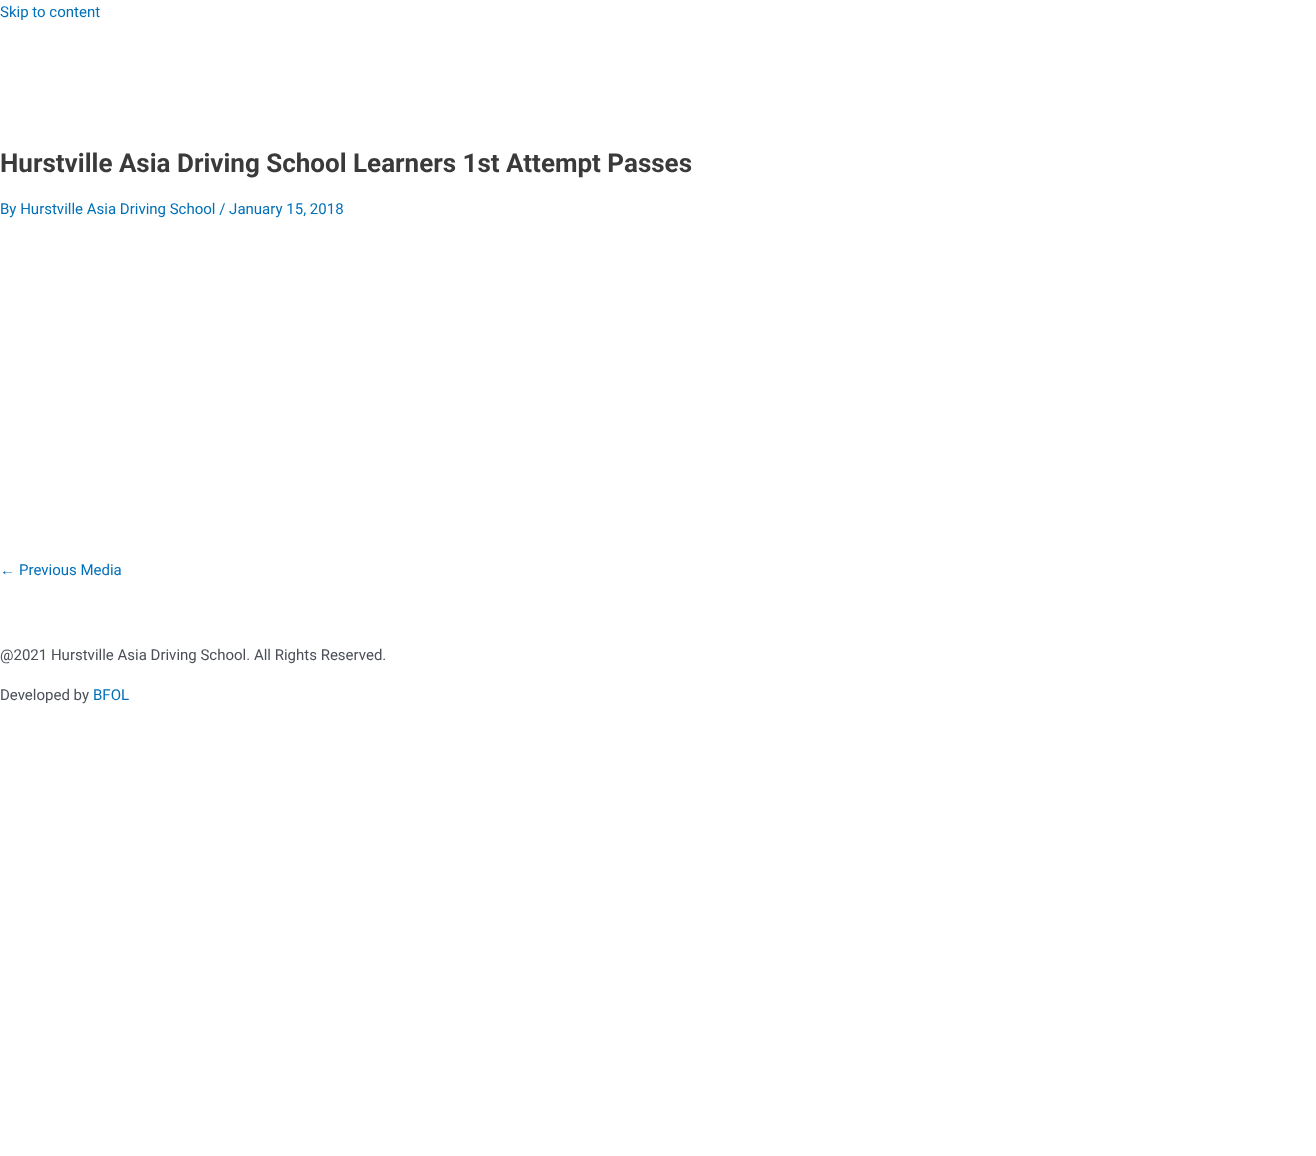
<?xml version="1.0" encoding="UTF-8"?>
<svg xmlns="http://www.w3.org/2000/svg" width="1316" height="1156">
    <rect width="100%" height="100%" fill="#FFFFFF"/>
    <text x="0" y="17" font-family="Roboto" font-size="15" fill="#0170B9">Skip to content</text>
    <text x="0" y="172" font-family="Roboto" font-size="26" font-weight="700" fill="#3A3A3A">Hurstville Asia Driving School Learners 1st Attempt Passes</text>
    <text x="0" y="214" font-family="Roboto" font-size="15" fill="#0170B9">By Hurstville Asia Driving School / January 15, 2018</text>
    <text x="0" y="575" font-family="Liberation Sans" font-size="15" fill="#0170B9">←</text>
    <text x="19" y="575" font-family="Roboto" font-size="15" fill="#0170B9">Previous Media</text>
    <text x="0" y="660" font-family="Roboto" font-size="15" fill="#4B4F58">@2021 Hurstville Asia Driving School. All Rights Reserved.</text>
    <text x="0" y="700" font-family="Roboto" font-size="15" fill="#4B4F58">Developed by</text>
    <text x="93" y="700" font-family="Roboto" font-size="15" fill="#0170B9">BFOL</text>
</svg>
